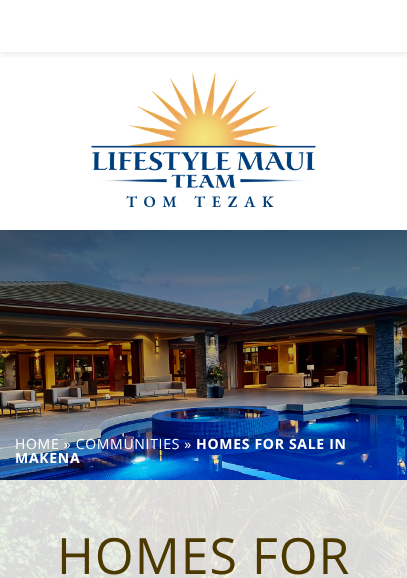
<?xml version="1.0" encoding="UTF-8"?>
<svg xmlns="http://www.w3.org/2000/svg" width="407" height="578">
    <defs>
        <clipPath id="clip1"><rect x="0" y="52" width="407" height="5"/></clipPath>
        <filter id="blur1" x="-50%" y="-200%" width="200%" height="500%"><feGaussianBlur stdDeviation="3.5"/></filter>
    </defs>
    <rect width="100%" height="100%" fill="#FFFFFF"/>
    <g clip-path="url(#clip1)">
        <rect x="0" y="2" width="407" height="52" fill="#000101" fill-opacity="0.09" filter="url(#blur1)"/>
    </g>
    <image x="91" y="72" width="225" height="116" href="img_01.png"/>
    <text x="126" y="207" font-family="EB Garamond" font-size="16" font-weight="600" letter-spacing="6.75" fill="#003E7B">TOM TEZAK</text>
    <image x="0" y="230" width="407" height="250" href="img_02.png"/>
    <text x="15" y="449" font-family="Open Sans" font-size="14" letter-spacing="0.7" fill="#FFFFFF">HOME » COMMUNITIES »</text>
    <text x="196" y="449" font-family="Open Sans" font-size="14" font-weight="700" letter-spacing="0.7" fill="#FFFFFF">HOMES FOR SALE IN</text>
    <text x="15" y="463" font-family="Open Sans" font-size="14" font-weight="700" letter-spacing="0.7" fill="#FFFFFF">MAKENA</text>
    <image x="0" y="480" width="407" height="98" href="img_03.png"/>
    <text x="57" y="574" font-family="Open Sans" font-size="50" letter-spacing="1" fill="#4B3900">HOMES FOR</text>
</svg>
